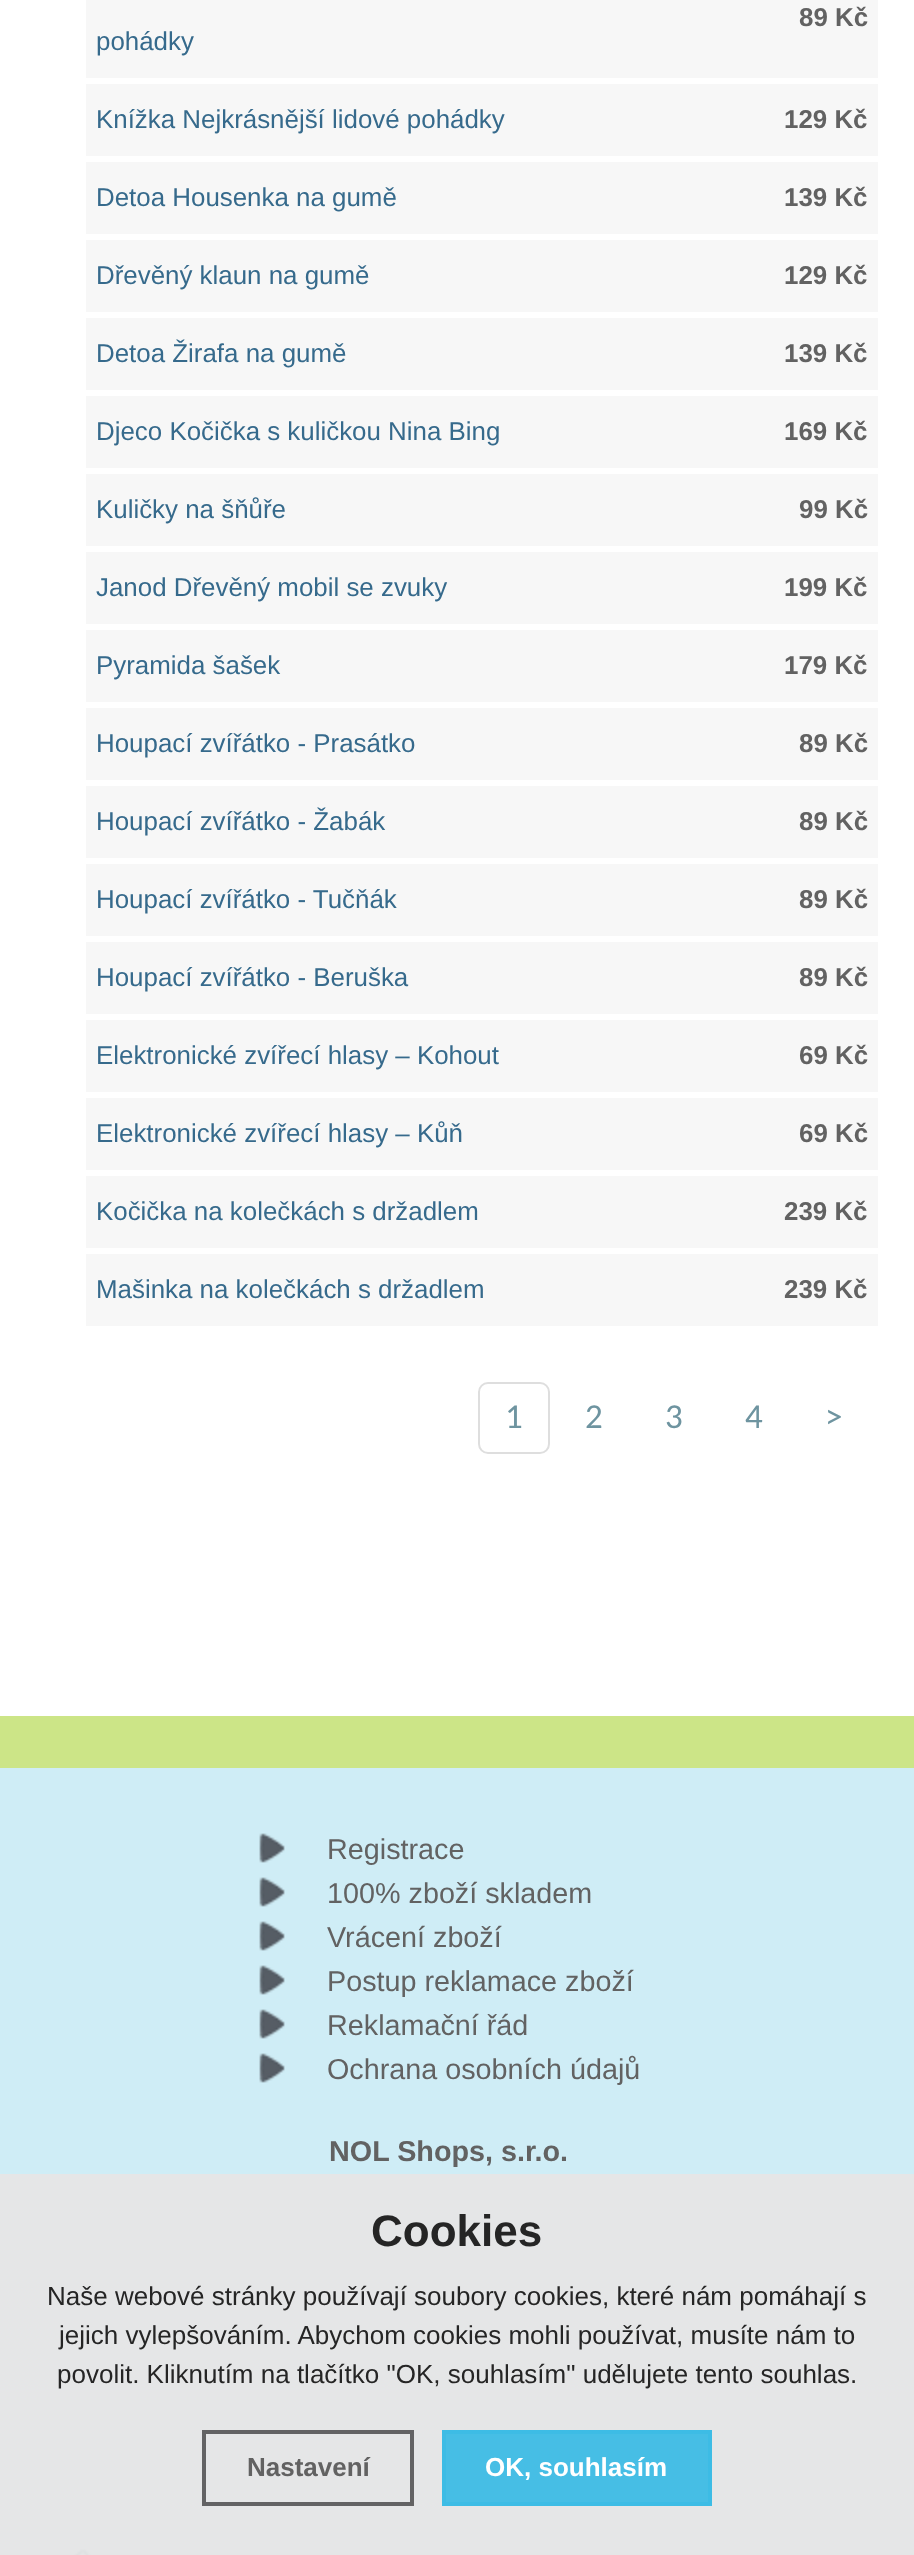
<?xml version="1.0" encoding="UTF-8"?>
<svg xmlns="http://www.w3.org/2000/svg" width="914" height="2555">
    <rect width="100%" height="100%" fill="#FFFFFF"/>
    <rect x="86" y="0" width="792" height="78" fill="#F7F7F7"/>
    <text x="799" y="26" font-family="Liberation Sans" font-size="25.9" font-weight="700" fill="#626262">89 Kč</text>
    <text x="96" y="50" font-family="Liberation Sans" font-size="25.9" fill="#366A8C">pohádky</text>
    <rect x="86" y="84" width="792" height="72" fill="#F7F7F7"/>
    <text x="96" y="128" font-family="Liberation Sans" font-size="25.9" fill="#366A8C">Knížka Nejkrásnější lidové pohádky</text>
    <text x="784" y="128" font-family="Liberation Sans" font-size="25.9" font-weight="700" fill="#626262">129 Kč</text>
    <rect x="86" y="162" width="792" height="72" fill="#F7F7F7"/>
    <text x="96" y="206" font-family="Liberation Sans" font-size="25.9" fill="#366A8C">Detoa Housenka na gumě</text>
    <text x="784" y="206" font-family="Liberation Sans" font-size="25.9" font-weight="700" fill="#626262">139 Kč</text>
    <rect x="86" y="240" width="792" height="72" fill="#F7F7F7"/>
    <text x="96" y="284" font-family="Liberation Sans" font-size="25.9" fill="#366A8C">Dřevěný klaun na gumě</text>
    <text x="784" y="284" font-family="Liberation Sans" font-size="25.9" font-weight="700" fill="#626262">129 Kč</text>
    <rect x="86" y="318" width="792" height="72" fill="#F7F7F7"/>
    <text x="96" y="362" font-family="Liberation Sans" font-size="25.9" fill="#366A8C">Detoa Žirafa na gumě</text>
    <text x="784" y="362" font-family="Liberation Sans" font-size="25.9" font-weight="700" fill="#626262">139 Kč</text>
    <rect x="86" y="396" width="792" height="72" fill="#F7F7F7"/>
    <text x="96" y="440" font-family="Liberation Sans" font-size="25.9" fill="#366A8C">Djeco Kočička s kuličkou Nina Bing</text>
    <text x="784" y="440" font-family="Liberation Sans" font-size="25.9" font-weight="700" fill="#626262">169 Kč</text>
    <rect x="86" y="474" width="792" height="72" fill="#F7F7F7"/>
    <text x="96" y="518" font-family="Liberation Sans" font-size="25.9" fill="#366A8C">Kuličky na šňůře</text>
    <text x="799" y="518" font-family="Liberation Sans" font-size="25.9" font-weight="700" fill="#626262">99 Kč</text>
    <rect x="86" y="552" width="792" height="72" fill="#F7F7F7"/>
    <text x="96" y="596" font-family="Liberation Sans" font-size="25.9" fill="#366A8C">Janod Dřevěný mobil se zvuky</text>
    <text x="784" y="596" font-family="Liberation Sans" font-size="25.9" font-weight="700" fill="#626262">199 Kč</text>
    <rect x="86" y="630" width="792" height="72" fill="#F7F7F7"/>
    <text x="96" y="674" font-family="Liberation Sans" font-size="25.9" fill="#366A8C">Pyramida šašek</text>
    <text x="784" y="674" font-family="Liberation Sans" font-size="25.9" font-weight="700" fill="#626262">179 Kč</text>
    <rect x="86" y="708" width="792" height="72" fill="#F7F7F7"/>
    <text x="96" y="752" font-family="Liberation Sans" font-size="25.9" fill="#366A8C">Houpací zvířátko - Prasátko</text>
    <text x="799" y="752" font-family="Liberation Sans" font-size="25.9" font-weight="700" fill="#626262">89 Kč</text>
    <rect x="86" y="786" width="792" height="72" fill="#F7F7F7"/>
    <text x="96" y="830" font-family="Liberation Sans" font-size="25.9" fill="#366A8C">Houpací zvířátko - Žabák</text>
    <text x="799" y="830" font-family="Liberation Sans" font-size="25.9" font-weight="700" fill="#626262">89 Kč</text>
    <rect x="86" y="864" width="792" height="72" fill="#F7F7F7"/>
    <text x="96" y="908" font-family="Liberation Sans" font-size="25.9" fill="#366A8C">Houpací zvířátko - Tučňák</text>
    <text x="799" y="908" font-family="Liberation Sans" font-size="25.9" font-weight="700" fill="#626262">89 Kč</text>
    <rect x="86" y="942" width="792" height="72" fill="#F7F7F7"/>
    <text x="96" y="986" font-family="Liberation Sans" font-size="25.9" fill="#366A8C">Houpací zvířátko - Beruška</text>
    <text x="799" y="986" font-family="Liberation Sans" font-size="25.9" font-weight="700" fill="#626262">89 Kč</text>
    <rect x="86" y="1020" width="792" height="72" fill="#F7F7F7"/>
    <text x="96" y="1064" font-family="Liberation Sans" font-size="25.9" fill="#366A8C">Elektronické zvířecí hlasy – Kohout</text>
    <text x="799" y="1064" font-family="Liberation Sans" font-size="25.9" font-weight="700" fill="#626262">69 Kč</text>
    <rect x="86" y="1098" width="792" height="72" fill="#F7F7F7"/>
    <text x="96" y="1142" font-family="Liberation Sans" font-size="25.9" fill="#366A8C">Elektronické zvířecí hlasy – Kůň</text>
    <text x="799" y="1142" font-family="Liberation Sans" font-size="25.9" font-weight="700" fill="#626262">69 Kč</text>
    <rect x="86" y="1176" width="792" height="72" fill="#F7F7F7"/>
    <text x="96" y="1220" font-family="Liberation Sans" font-size="25.9" fill="#366A8C">Kočička na kolečkách s držadlem</text>
    <text x="784" y="1220" font-family="Liberation Sans" font-size="25.9" font-weight="700" fill="#626262">239 Kč</text>
    <rect x="86" y="1254" width="792" height="72" fill="#F7F7F7"/>
    <text x="96" y="1298" font-family="Liberation Sans" font-size="25.9" fill="#366A8C">Mašinka na kolečkách s držadlem</text>
    <text x="784" y="1298" font-family="Liberation Sans" font-size="25.9" font-weight="700" fill="#626262">239 Kč</text>
    <rect x="479" y="1383" width="70" height="70" rx="9" fill="none" stroke="#DEDEDE" stroke-width="2"/>
    <text x="505" y="1428" font-family="Carlito" font-size="35" fill="#6E94A0">1</text>
    <text x="585" y="1428" font-family="Carlito" font-size="35" fill="#6E94A0">2</text>
    <text x="665" y="1428" font-family="Carlito" font-size="35" fill="#6E94A0">3</text>
    <text x="745" y="1428" font-family="Carlito" font-size="35" fill="#6E94A0">4</text>
    <text x="825" y="1428" font-family="Carlito" font-size="35" fill="#6E94A0">&gt;</text>
    <rect x="0" y="1768" width="914" height="406" fill="#CFEDF6"/>
    <rect x="0" y="2174" width="914" height="381" fill="#E5E6E7"/>
    <rect x="0" y="1716" width="914" height="52" fill="#CCE587"/>
    <image x="259" y="1833" width="26" height="30" href="img_01.png"/>
    <text x="327" y="1859" font-family="Liberation Sans" font-size="28.75" fill="#626262">Registrace</text>
    <image x="259" y="1877" width="26" height="30" href="img_01.png"/>
    <text x="327" y="1903" font-family="Liberation Sans" font-size="28.75" fill="#626262">100% zboží skladem</text>
    <image x="259" y="1921" width="26" height="30" href="img_01.png"/>
    <text x="327" y="1947" font-family="Liberation Sans" font-size="28.75" fill="#626262">Vrácení zboží</text>
    <image x="259" y="1965" width="26" height="30" href="img_01.png"/>
    <text x="327" y="1991" font-family="Liberation Sans" font-size="28.75" fill="#626262">Postup reklamace zboží</text>
    <image x="259" y="2009" width="26" height="30" href="img_01.png"/>
    <text x="327" y="2035" font-family="Liberation Sans" font-size="28.75" fill="#626262">Reklamační řád</text>
    <image x="259" y="2053" width="26" height="30" href="img_01.png"/>
    <text x="327" y="2079" font-family="Liberation Sans" font-size="28.75" fill="#626262">Ochrana osobních údajů</text>
    <text x="329" y="2161" font-family="Liberation Sans" font-size="28.75" font-weight="700" fill="#626262">NOL Shops, s.r.o.</text>
    <image x="74" y="2549" width="17" height="6" href="img_02.png"/>
    <text x="371" y="2246" font-family="Liberation Sans" font-size="44" font-weight="700" fill="#252525">Cookies</text>
    <text x="47" y="2305" font-family="Liberation Sans" font-size="26" fill="#252525">Naše webové stránky používají soubory cookies, které nám pomáhají s</text>
    <text x="59" y="2344" font-family="Liberation Sans" font-size="26" fill="#252525">jejich vylepšováním. Abychom cookies mohli používat, musíte nám to</text>
    <text x="57" y="2383" font-family="Liberation Sans" font-size="26" fill="#252525">povolit. Kliknutím na tlačítko "OK, souhlasím" udělujete tento souhlas.</text>
    <rect x="204" y="2432" width="208" height="72" fill="none" stroke="#5C5C5D" stroke-opacity="0.95" stroke-width="4"/>
    <text x="247" y="2476" font-family="Liberation Sans" font-size="26" font-weight="700" fill="#626262">Nastavení</text>
    <rect x="444" y="2432" width="266" height="72" fill="#3DBCE5" fill-opacity="0.95" stroke="#3DBCE5" stroke-width="4"/>
    <text x="485" y="2476" font-family="Liberation Sans" font-size="26" font-weight="700" fill="#FFFFFF">OK, souhlasím</text>
</svg>
